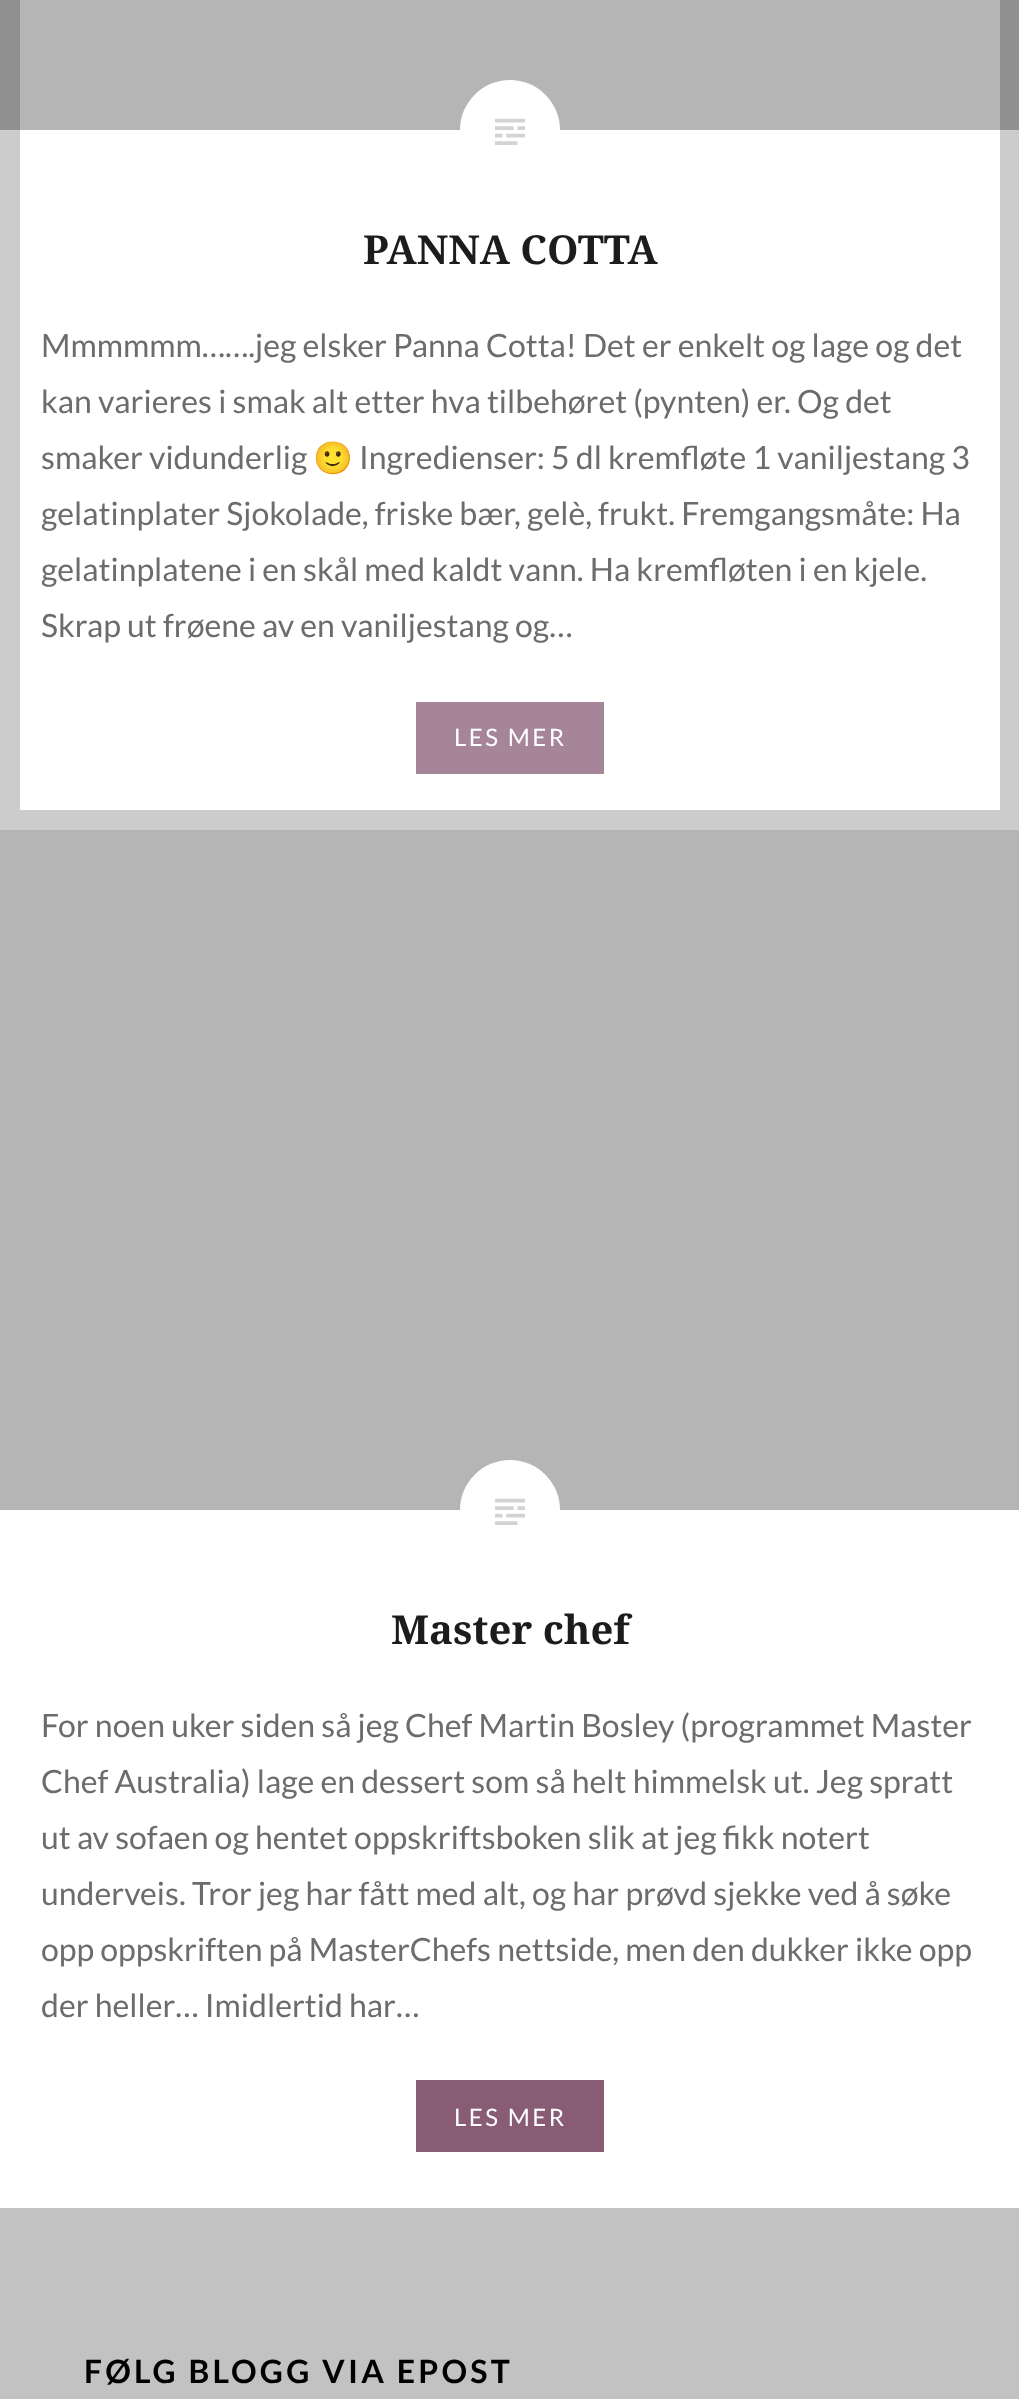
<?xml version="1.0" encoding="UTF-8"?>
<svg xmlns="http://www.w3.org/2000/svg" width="1019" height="2399">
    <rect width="100%" height="100%" fill="#FFFFFF"/>
    <rect x="0" y="0" width="1019" height="130" fill="#B5B5B5"/>
    <circle cx="510" cy="130" r="50" fill="#FFFFFF"/>
    <rect x="10" y="-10" width="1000" height="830" fill="none" stroke="#000000" stroke-opacity="0.2" stroke-width="20"/>
    <image x="495" y="118" width="30" height="27" href="img_01.png"/>
    <text x="363" y="264" font-family="Noto Serif" font-size="40" font-weight="700" fill="#1A1C1E">PANNA COTTA</text>
    <text font-family="Lato" font-size="32" fill="#6A6C6E">
        <tspan x="41" y="357">Mmmmmm…….jeg elsker Panna Cotta! Det er enkelt og lage og det</tspan>
        <tspan x="41" y="413">kan varieres i smak alt etter hva tilbehøret (pynten) er. Og det</tspan>
        <tspan x="41" y="469">smaker vidunderlig</tspan>
    </text>
    <text x="313" y="469" font-family="Noto Color Emoji" font-size="32" fill="#6A6C6E">🙂</text>
    <text x="359" y="469" font-family="Lato" font-size="32" fill="#6A6C6E">Ingredienser: 5 dl kremfløte 1 vaniljestang 3</text>
    <text font-family="Lato" font-size="32" fill="#6A6C6E">
        <tspan x="41" y="525">gelatinplater Sjokolade, friske bær, gelè, frukt. Fremgangsmåte: Ha</tspan>
        <tspan x="41" y="581">gelatinplatene i en skål med kaldt vann. Ha kremfløten i en kjele.</tspan>
        <tspan x="41" y="637">Skrap ut frøene av en vaniljestang og…</tspan>
    </text>
    <rect x="416" y="702" width="188" height="72" fill="#A58597"/>
    <text x="454" y="746" font-family="Lato" font-size="24" letter-spacing="2.5" fill="#FFFFFF">LES MER</text>
    <rect x="0" y="830" width="1019" height="680" fill="#B5B5B5"/>
    <circle cx="510" cy="1510" r="50" fill="#FFFFFF"/>
    <image x="495" y="1498" width="30" height="27" href="img_01.png"/>
    <text x="391" y="1644" font-family="Noto Serif" font-size="40" font-weight="700" fill="#1A1C1E">Master chef</text>
    <text font-family="Lato" font-size="32" fill="#6A6C6E">
        <tspan x="41" y="1737">For noen uker siden så jeg Chef Martin Bosley (programmet Master</tspan>
        <tspan x="41" y="1793">Chef Australia) lage en dessert som så helt himmelsk ut. Jeg spratt</tspan>
        <tspan x="41" y="1849">ut av sofaen og hentet oppskriftsboken slik at jeg fikk notert</tspan>
        <tspan x="41" y="1905">underveis. Tror jeg har fått med alt, og har prøvd sjekke ved å søke</tspan>
        <tspan x="41" y="1961">opp oppskriften på MasterChefs nettside, men den dukker ikke opp</tspan>
        <tspan x="41" y="2017">der heller… Imidlertid har…</tspan>
    </text>
    <rect x="416" y="2080" width="188" height="72" fill="#875C74"/>
    <text x="454" y="2126" font-family="Lato" font-size="24" letter-spacing="2.5" fill="#FFFFFF">LES MER</text>
    <rect x="0" y="2208" width="1019" height="191" fill="#C2C2C2"/>
    <text x="84" y="2383" font-family="Lato" font-size="32" font-weight="700" letter-spacing="3.25" fill="#000000">FØLG BLOGG VIA EPOST</text>
</svg>
